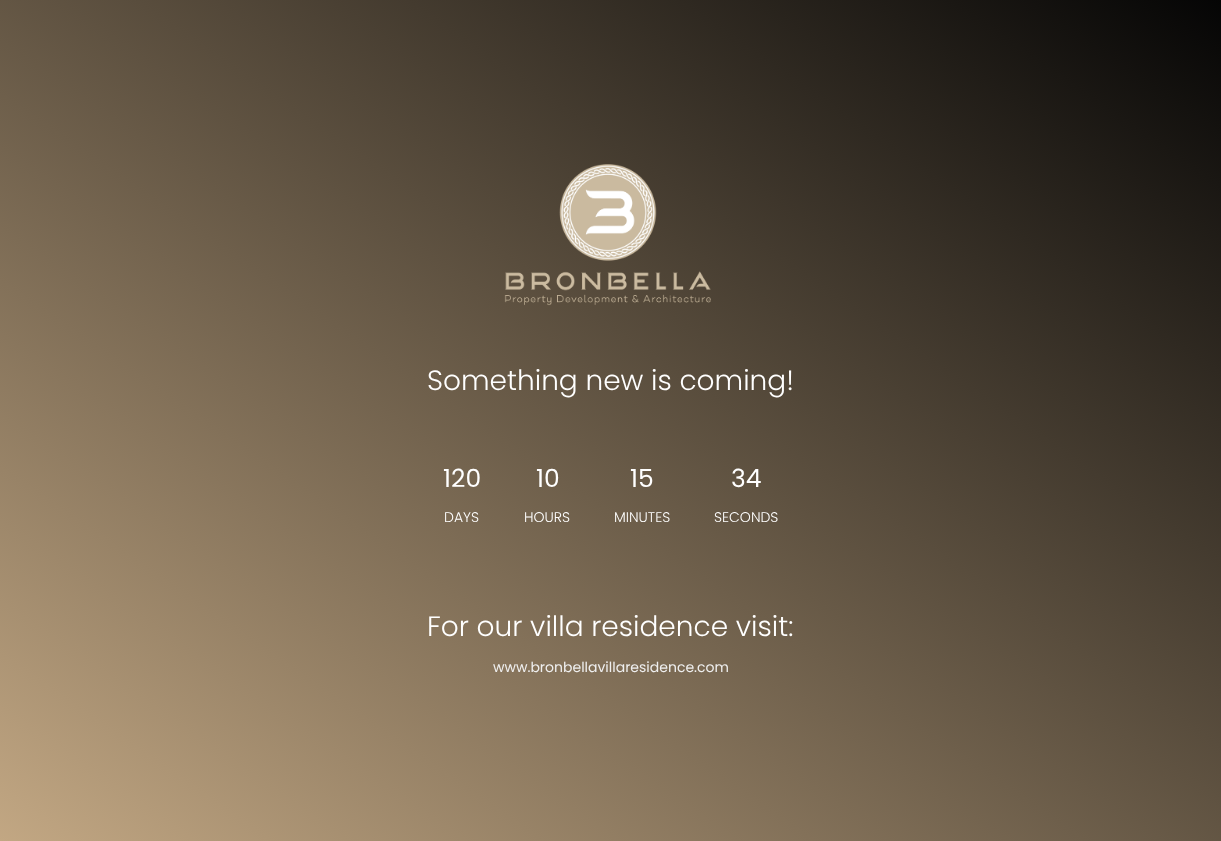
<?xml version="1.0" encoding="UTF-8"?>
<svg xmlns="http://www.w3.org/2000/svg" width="1221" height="841">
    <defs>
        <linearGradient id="g1" gradientUnits="userSpaceOnUse" x1="218" y1="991" x2="1003" y2="-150"><stop offset="0" stop-color="#C2A783"/><stop offset="1" stop-color="#050505"/></linearGradient>
    </defs>
    <rect width="100%" height="100%" fill="#FFFFFF"/>
    <rect x="0" y="0" width="1221" height="841" fill="url(#g1)"/>
    <image x="504" y="164" width="207" height="142" href="img_01.png"/>
    <text x="427" y="390" font-family="Poppins" font-size="28" font-weight="300" fill="#FFFFFF">Something new is coming!</text>
    <text x="443" y="487" font-family="Poppins" font-size="25" fill="#FFFFFF">120</text>
    <text x="444" y="522" font-family="Poppins" font-size="14" font-weight="300" fill="#FFFFFF">DAYS</text>
    <text x="536" y="487" font-family="Poppins" font-size="25" fill="#FFFFFF">10</text>
    <text x="524" y="522" font-family="Poppins" font-size="14" font-weight="300" fill="#FFFFFF">HOURS</text>
    <text x="630" y="487" font-family="Poppins" font-size="25" fill="#FFFFFF">15</text>
    <text x="614" y="522" font-family="Poppins" font-size="14" font-weight="300" fill="#FFFFFF">MINUTES</text>
    <text x="731" y="487" font-family="Poppins" font-size="25" fill="#FFFFFF">34</text>
    <text x="714" y="522" font-family="Poppins" font-size="14" font-weight="300" fill="#FFFFFF">SECONDS</text>
    <text x="427" y="636" font-family="Poppins" font-size="28" font-weight="300" fill="#FFFFFF">For our villa residence visit:</text>
    <text x="493" y="672" font-family="Poppins" font-size="14" fill="#EFEFEF">www.bronbellavillaresidence.com</text>
</svg>
